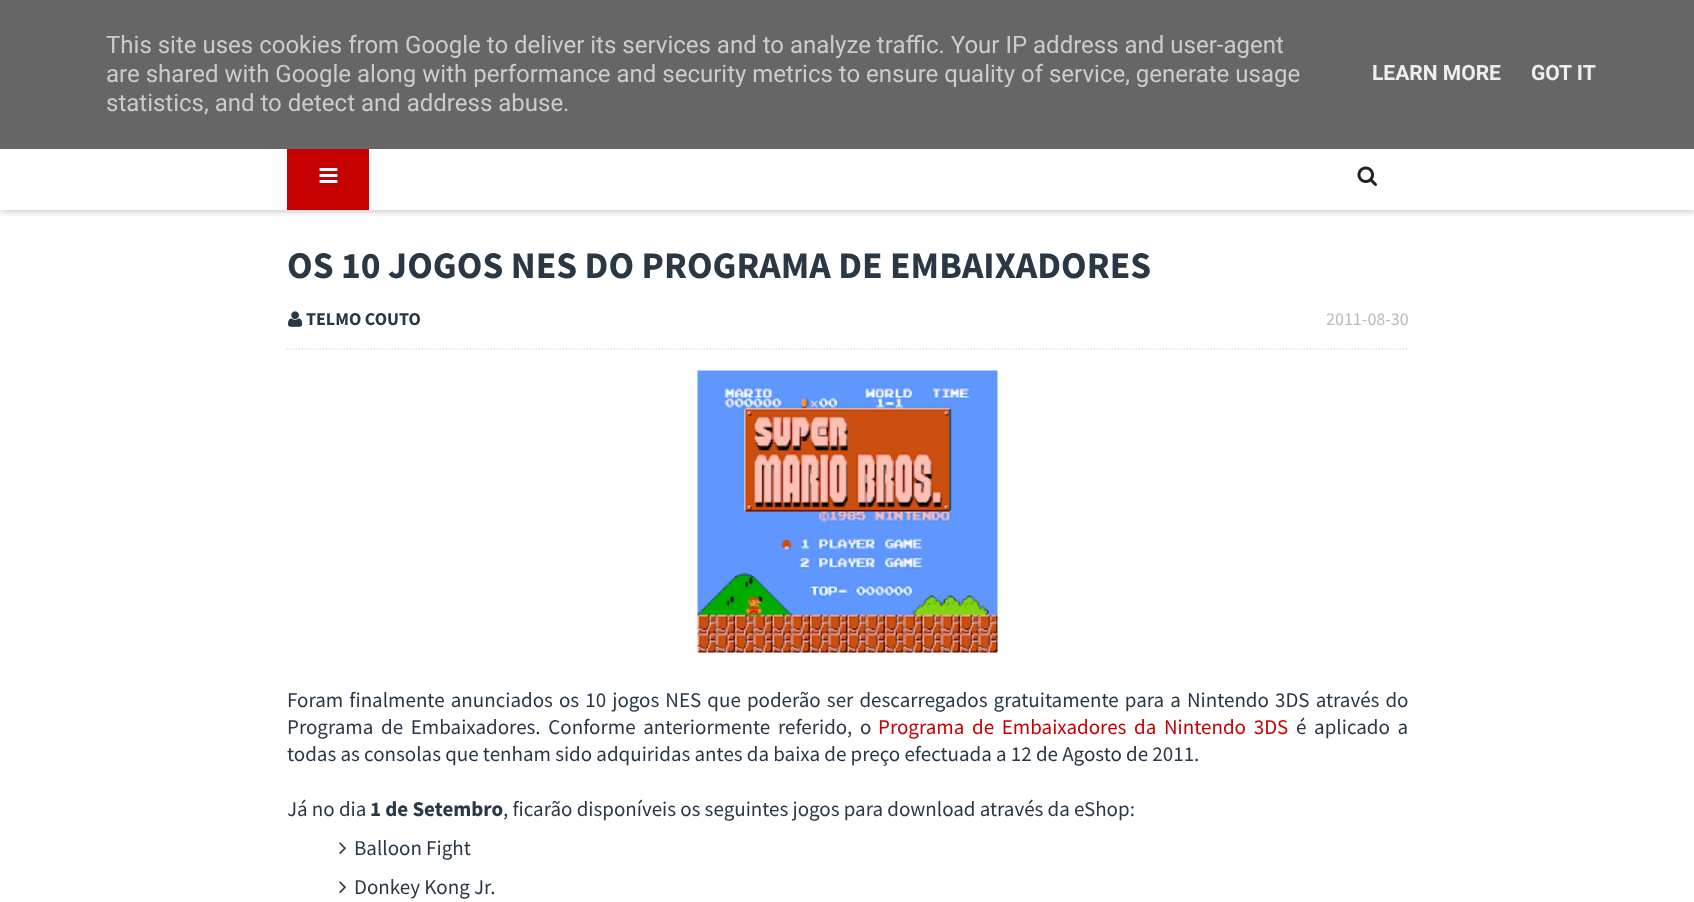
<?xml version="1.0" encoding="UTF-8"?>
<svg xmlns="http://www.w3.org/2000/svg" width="1694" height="902">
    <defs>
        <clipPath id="clip1"><rect x="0" y="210" width="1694" height="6"/></clipPath>
        <filter id="blur1" x="-50%" y="-200%" width="200%" height="500%"><feGaussianBlur stdDeviation="4"/></filter>
    </defs>
    <rect width="100%" height="100%" fill="#FFFFFF"/>
    <g clip-path="url(#clip1)">
        <rect x="0" y="143" width="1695" height="67" fill="#000000" fill-opacity="0.3" filter="url(#blur1)"/>
    </g>
    <rect x="0" y="0" width="1694" height="149" fill="#666666"/>
    <text font-family="Roboto" font-size="24" fill="#CCCCCC">
        <tspan x="106" y="53">This site uses cookies from Google to deliver its services and to analyze traffic. Your IP address and user-agent</tspan>
        <tspan x="106" y="82">are shared with Google along with performance and security metrics to ensure quality of service, generate usage</tspan>
        <tspan x="106" y="111">statistics, and to detect and address abuse.</tspan>
    </text>
    <text x="1372" y="80" font-family="Roboto" font-size="21" font-weight="700" fill="#EEEEEE">LEARN MORE</text>
    <text x="1531" y="80" font-family="Roboto" font-size="21" font-weight="700" fill="#EEEEEE">GOT IT</text>
    <rect x="287" y="149" width="82" height="61" fill="#C60000"/>
    <image x="319" y="168" width="19" height="15" href="img_01.png"/>
    <image x="1357" y="166" width="20" height="20" href="img_02.png"/>
    <text x="287" y="278" font-family="Source Sans Pro" font-size="37.5" font-weight="700" fill="#2A3744">OS 10 JOGOS NES DO PROGRAMA DE EMBAIXADORES</text>
    <path d="M 286.5 349 H 1408.5" fill="none" stroke="#E4E4E4" stroke-width="1.5" stroke-dasharray="1.5 1.5"/>
    <image x="288" y="311" width="15" height="16" href="img_03.png"/>
    <text x="306" y="325" font-family="Source Sans Pro" font-size="18" font-weight="700" fill="#2A3744">TELMO COUTO</text>
    <text x="1326" y="325" font-family="Source Sans Pro" font-size="18" fill="#BBBBBB">2011-08-30</text>
    <image x="697" y="370" width="301" height="283" href="img_04.png"/>
    <text font-family="Source Sans Pro" font-size="21" fill="#2A3744">
        <tspan x="287" y="707" word-spacing="1.9">Foram finalmente anunciados os 10 jogos NES que poderão ser descarregados gratuitamente para a Nintendo 3DS através do</tspan>
        <tspan x="287" y="734" word-spacing="3.5">Programa de Embaixadores. Conforme anteriormente referido, o</tspan>
    </text>
    <text x="878" y="734" word-spacing="3.5" font-family="Source Sans Pro" font-size="21" fill="#C60000">Programa de Embaixadores da Nintendo 3DS</text>
    <text x="1296" y="734" word-spacing="3.5" font-family="Source Sans Pro" font-size="21" fill="#2A3744">é aplicado a</text>
    <text x="287" y="761" font-family="Source Sans Pro" font-size="21" fill="#2A3744">todas as consolas que tenham sido adquiridas antes da baixa de preço efectuada a 12 de Agosto de 2011.</text>
    <text x="287" y="816" font-family="Source Sans Pro" font-size="21" fill="#2A3744">Já no dia</text>
    <text x="370" y="816" font-family="Source Sans Pro" font-size="21" font-weight="700" fill="#2A3744">1 de Setembro</text>
    <text x="503" y="816" font-family="Source Sans Pro" font-size="21" fill="#2A3744">, ficarão disponíveis os seguintes jogos para download através da eShop:</text>
    <image x="339" y="842" width="7" height="12" href="img_05.png"/>
    <text x="354" y="855" font-family="Source Sans Pro" font-size="21" fill="#2A3744">Balloon Fight</text>
    <image x="339" y="881" width="7" height="12" href="img_05.png"/>
    <text x="354" y="894" font-family="Source Sans Pro" font-size="21" fill="#2A3744">Donkey Kong Jr.</text>
</svg>
